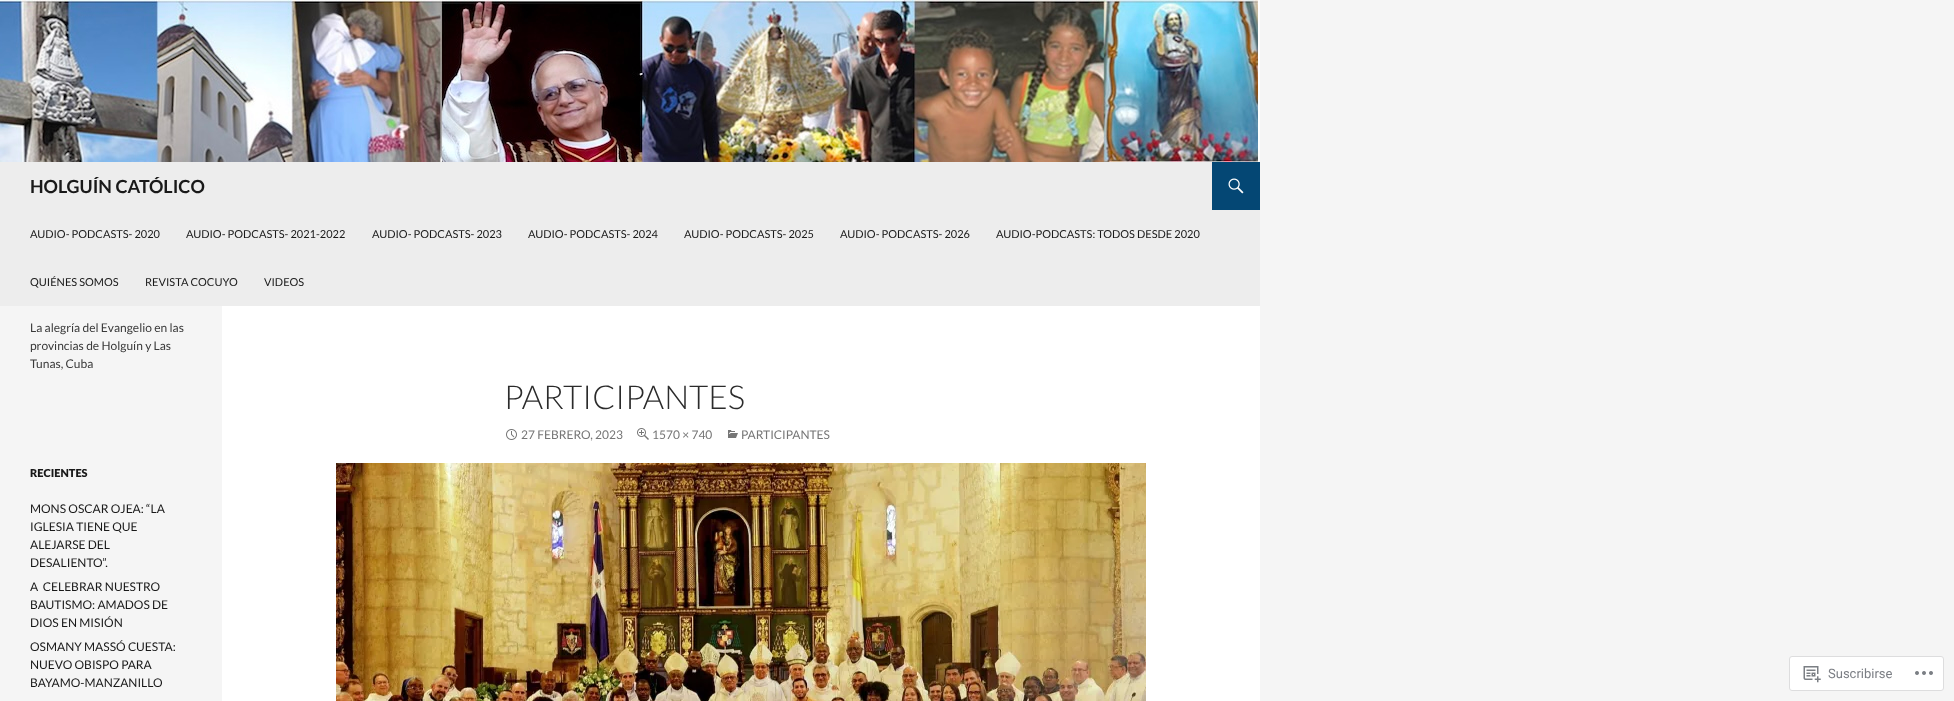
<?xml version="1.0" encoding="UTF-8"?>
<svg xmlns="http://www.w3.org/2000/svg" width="1954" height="701">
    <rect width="100%" height="100%" fill="#F5F5F5"/>
    <rect x="222" y="0" width="1038" height="701" fill="#FFFFFF"/>
    <image x="0" y="0" width="1258" height="162" href="img_01.png"/>
    <rect x="0" y="162" width="1260" height="144" fill="#EDEDED"/>
    <text x="30" y="193" font-family="Lato" font-size="18" font-weight="700" fill="#191919">HOLGUÍN CATÓLICO</text>
    <rect x="1212" y="162" width="48" height="48" fill="#044774"/>
    <image x="1228" y="178" width="16" height="16" href="img_02.png"/>
    <text x="30" y="238" font-family="Lato" font-size="11" fill="#191919">AUDIO- PODCASTS- 2020</text>
    <text x="186" y="238" font-family="Lato" font-size="11" fill="#191919">AUDIO- PODCASTS- 2021-2022</text>
    <text x="372" y="238" font-family="Lato" font-size="11" fill="#191919">AUDIO- PODCASTS- 2023</text>
    <text x="528" y="238" font-family="Lato" font-size="11" fill="#191919">AUDIO- PODCASTS- 2024</text>
    <text x="684" y="238" font-family="Lato" font-size="11" fill="#191919">AUDIO- PODCASTS- 2025</text>
    <text x="840" y="238" font-family="Lato" font-size="11" fill="#191919">AUDIO- PODCASTS- 2026</text>
    <text x="996" y="238" font-family="Lato" font-size="11" fill="#191919">AUDIO-PODCASTS: TODOS DESDE 2020</text>
    <text x="30" y="286" font-family="Lato" font-size="11" fill="#191919">QUIÉNES SOMOS</text>
    <text x="145" y="286" font-family="Lato" font-size="11" fill="#191919">REVISTA COCUYO</text>
    <text x="264" y="286" font-family="Lato" font-size="11" fill="#191919">VIDEOS</text>
    <text font-family="Lato" font-size="12" fill="#3A3A3A">
        <tspan x="30" y="332">La alegría del Evangelio en las</tspan>
        <tspan x="30" y="350">provincias de Holguín y Las</tspan>
        <tspan x="30" y="368">Tunas, Cuba</tspan>
    </text>
    <text x="30" y="477" font-family="Lato" font-size="11" font-weight="900" fill="#191919">RECIENTES</text>
    <text font-family="Lato" font-size="12" fill="#191919">
        <tspan x="30" y="513">MONS OSCAR OJEA: “LA</tspan>
        <tspan x="30" y="531">IGLESIA TIENE QUE</tspan>
        <tspan x="30" y="549">ALEJARSE DEL</tspan>
        <tspan x="30" y="567">DESALIENTO”.</tspan>
    </text>
    <text font-family="Lato" font-size="12" fill="#191919" xml:space="preserve"><tspan x="30" y="591">A  CELEBRAR NUESTRO</tspan><tspan x="30" y="609">BAUTISMO: AMADOS DE</tspan><tspan x="30" y="627">DIOS EN MISIÓN</tspan></text>
    <text font-family="Lato" font-size="12" fill="#191919">
        <tspan x="30" y="651">OSMANY MASSÓ CUESTA:</tspan>
        <tspan x="30" y="669">NUEVO OBISPO PARA</tspan>
        <tspan x="30" y="687">BAYAMO-MANZANILLO</tspan>
    </text>
    <text x="504" y="409" font-family="Lato" font-size="33" font-weight="300" fill="#2B2B2B">PARTICIPANTES</text>
    <image x="506" y="429" width="11" height="11" href="img_03.png"/>
    <text x="521" y="439" font-family="Lato" font-size="12" fill="#767676">27 FEBRERO, 2023</text>
    <image x="637" y="428" width="12" height="12" href="img_04.png"/>
    <text x="652" y="439" font-family="Lato" font-size="12" fill="#767676">1570 × 740</text>
    <image x="728" y="430" width="10" height="8" href="img_05.png"/>
    <text x="741" y="439" font-family="Lato" font-size="12" fill="#767676">PARTICIPANTES</text>
    <image x="336" y="463" width="810" height="238" href="img_06.png"/>
    <rect x="1789.5" y="656.5" width="154" height="34" rx="2.5" fill="#FFFFFF" stroke="#DDDDDE"/>
    <image x="1803" y="666" width="18" height="17" href="img_07.png"/>
    <text x="1828" y="678" font-family="Roboto" font-size="13" fill="#7B7E84">Suscribirse</text>
    <image x="1915" y="671" width="18" height="4" href="img_08.png"/>
</svg>
